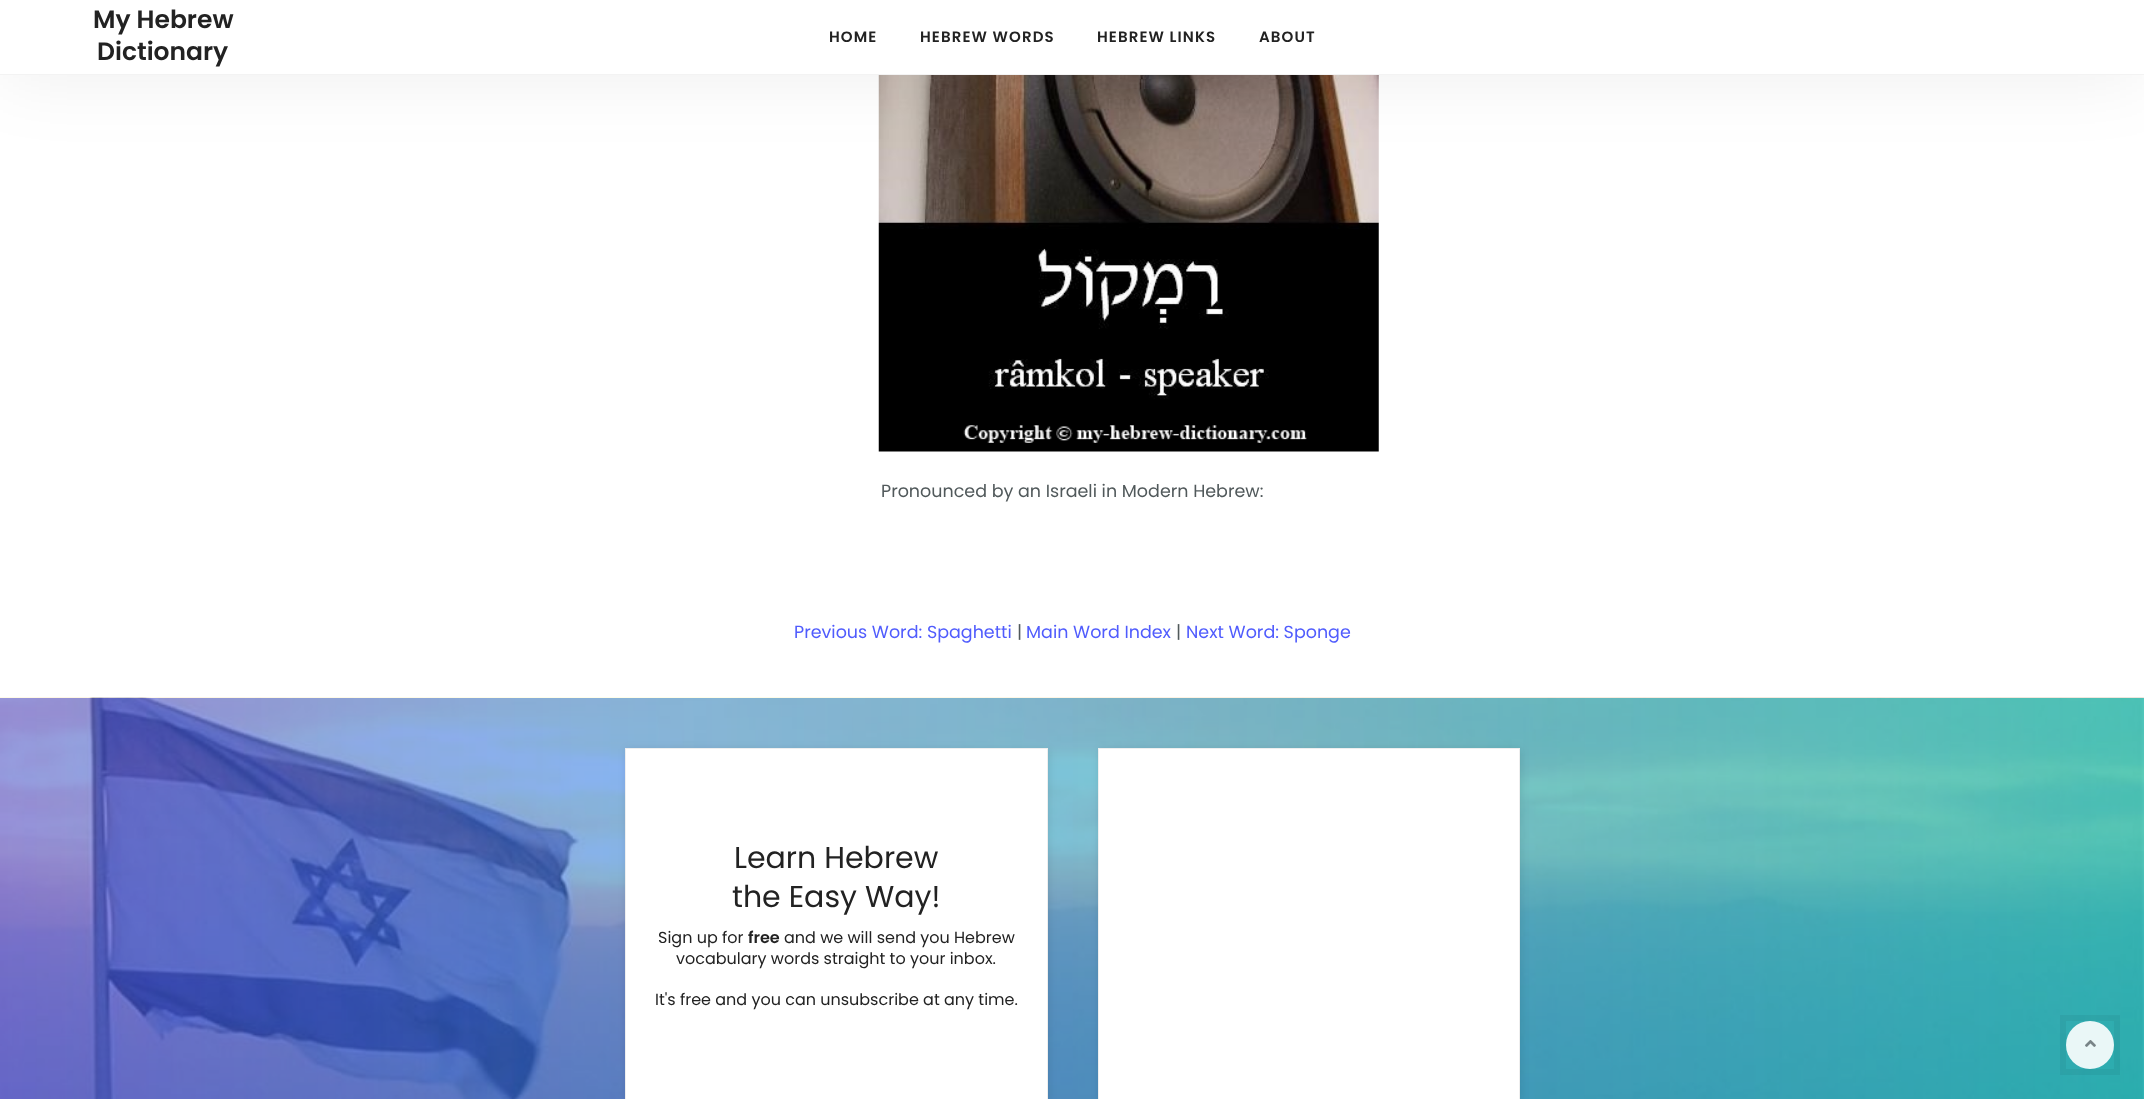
<?xml version="1.0" encoding="UTF-8"?>
<svg xmlns="http://www.w3.org/2000/svg" width="2144" height="1099">
    <defs>
        <filter id="blur1" x="-50%" y="-200%" width="200%" height="500%"><feGaussianBlur stdDeviation="37.5"/></filter>
        <filter id="blur2" x="-50%" y="-200%" width="200%" height="500%"><feGaussianBlur stdDeviation="4"/></filter>
    </defs>
    <rect width="100%" height="100%" fill="#FFFFFF"/>
    <image x="878" y="75" width="501" height="377" href="img_01.png"/>
    <rect x="0" y="0" width="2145" height="75" fill="#000000" fill-opacity="0.07" filter="url(#blur1)"/>
    <rect x="0" y="0" width="2144" height="74" fill="#FFFFFF"/>
    <rect x="0" y="74" width="2144" height="1" fill="#F3F3F3"/>
    <text x="93" y="28" font-family="Poppins" font-size="25" font-weight="600" fill="#222222">My Hebrew</text>
    <text x="97" y="60" font-family="Poppins" font-size="25" font-weight="600" fill="#222222">Dictionary</text>
    <text x="829" y="42" font-family="Poppins" font-size="15" font-weight="600" letter-spacing="1.1" fill="#222222">HOME</text>
    <text x="920" y="42" font-family="Poppins" font-size="15" font-weight="600" letter-spacing="1.1" fill="#222222">HEBREW WORDS</text>
    <text x="1097" y="42" font-family="Poppins" font-size="15" font-weight="600" letter-spacing="1.1" fill="#222222">HEBREW LINKS</text>
    <text x="1259" y="42" font-family="Poppins" font-size="15" font-weight="600" letter-spacing="1.1" fill="#222222">ABOUT</text>
    <text x="881" y="497" font-family="Poppins" font-size="17.5" fill="#51595B">Pronounced by an Israeli in Modern Hebrew:</text>
    <text x="794" y="638" font-family="Poppins" font-size="17.5" fill="#505CFD">Previous Word: Spaghetti</text>
    <text x="1017" y="638" font-family="Poppins" font-size="17.5" fill="#51595B">|</text>
    <text x="1026" y="638" font-family="Poppins" font-size="17.5" fill="#505CFD">Main Word Index</text>
    <text x="1176" y="638" font-family="Poppins" font-size="17.5" fill="#51595B">|</text>
    <text x="1186" y="638" font-family="Poppins" font-size="17.5" fill="#505CFD">Next Word: Sponge</text>
    <image x="0" y="697" width="2144" height="402" href="img_02.png"/>
    <rect x="626" y="749" width="423" height="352" fill="#000000" fill-opacity="0.09" filter="url(#blur2)"/>
    <rect x="625.5" y="748.5" width="422" height="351" fill="#FFFFFF" stroke="#EEEEEE"/>
    <text x="734" y="868" font-family="Poppins" font-size="30" fill="#222222">Learn Hebrew</text>
    <text x="732" y="907" font-family="Poppins" font-size="30" fill="#222222">the Easy Way!</text>
    <text x="658" y="943" font-family="Poppins" font-size="16" fill="#222222">Sign up for</text>
    <text x="748" y="943" font-family="Poppins" font-size="16" font-weight="600" fill="#222222">free</text>
    <text x="784" y="943" font-family="Poppins" font-size="16" fill="#222222">and we will send you Hebrew</text>
    <text x="676" y="964" font-family="Poppins" font-size="16" fill="#222222">vocabulary words straight to your inbox.</text>
    <text x="655" y="1005" font-family="Poppins" font-size="16" fill="#222222">It's free and you can unsubscribe at any time.</text>
    <rect x="1099" y="749" width="422" height="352" fill="#000000" fill-opacity="0.09" filter="url(#blur2)"/>
    <rect x="1098.5" y="748.5" width="421" height="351" fill="#FFFFFF" stroke="#EEEEEE"/>
    <rect x="2063" y="1018" width="54" height="54" fill="none" stroke="#000000" stroke-opacity="0.05" stroke-width="6"/>
    <circle cx="2090" cy="1045" r="24" fill="#FFFFFF" fill-opacity="0.9"/>
    <image x="2085" y="1040" width="11" height="7" href="img_03.png"/>
</svg>
